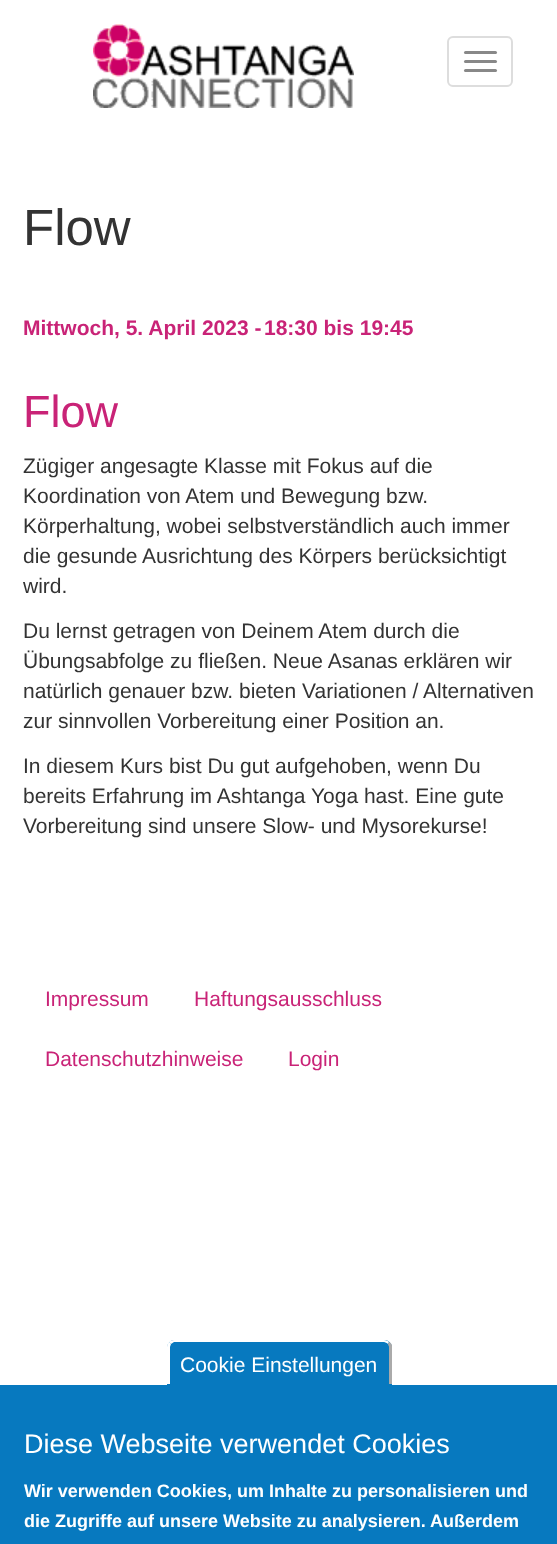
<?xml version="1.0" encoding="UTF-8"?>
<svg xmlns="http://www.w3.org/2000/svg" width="557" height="1544">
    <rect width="100%" height="100%" fill="#FFFFFF"/>
    <image x="93" y="24" width="261" height="84" href="img_01.png"/>
    <rect x="448" y="37" width="64" height="49" rx="5" fill="none" stroke="#DDDDDD" stroke-width="2"/>
    <rect x="464" y="51" width="33" height="3" rx="1.5" fill="#888888"/>
    <rect x="464" y="60" width="33" height="3" rx="1.5" fill="#888888"/>
    <rect x="464" y="69" width="33" height="3" rx="1.5" fill="#888888"/>
    <text x="23" y="245" font-family="Liberation Sans" font-size="51" fill="#333333">Flow</text>
    <text x="23" y="335" font-family="Liberation Sans" font-size="21" font-weight="700" fill="#C92377">Mittwoch, 5. April 2023 -</text>
    <text x="264" y="335" font-family="Liberation Sans" font-size="21" font-weight="700" fill="#C92377">18:30 bis 19:45</text>
    <text x="23" y="427" font-family="Liberation Sans" font-size="45" fill="#C92377">Flow</text>
    <text font-family="Liberation Sans" font-size="21" fill="#333333">
        <tspan x="23" y="473">Zügiger angesagte Klasse mit Fokus auf die</tspan>
        <tspan x="23" y="503">Koordination von Atem und Bewegung bzw.</tspan>
        <tspan x="23" y="533">Körperhaltung, wobei selbstverständlich auch immer</tspan>
        <tspan x="23" y="563">die gesunde Ausrichtung des Körpers berücksichtigt</tspan>
        <tspan x="23" y="593">wird.</tspan>
    </text>
    <text font-family="Liberation Sans" font-size="21" fill="#333333">
        <tspan x="23" y="638">Du lernst getragen von Deinem Atem durch die</tspan>
        <tspan x="23" y="668">Übungsabfolge zu fließen. Neue Asanas erklären wir</tspan>
        <tspan x="23" y="698">natürlich genauer bzw. bieten Variationen / Alternativen</tspan>
        <tspan x="23" y="728">zur sinnvollen Vorbereitung einer Position an.</tspan>
    </text>
    <text font-family="Liberation Sans" font-size="21" fill="#333333">
        <tspan x="23" y="773">In diesem Kurs bist Du gut aufgehoben, wenn Du</tspan>
        <tspan x="23" y="803">bereits Erfahrung im Ashtanga Yoga hast. Eine gute</tspan>
        <tspan x="23" y="833">Vorbereitung sind unsere Slow- und Mysorekurse!</tspan>
    </text>
    <text x="45" y="1006" font-family="Liberation Sans" font-size="21" fill="#C92377">Impressum</text>
    <text x="194" y="1006" font-family="Liberation Sans" font-size="21" fill="#C92377">Haftungsausschluss</text>
    <text x="45" y="1066" font-family="Liberation Sans" font-size="21" fill="#C92377">Datenschutzhinweise</text>
    <text x="288" y="1066" font-family="Liberation Sans" font-size="21" fill="#C92377">Login</text>
    <rect x="0" y="1385" width="557" height="159" fill="#0779BF"/>
    <path d="M 175 1340 H 384 C 388.5 1340 392 1343.5 392 1348 V 1385 H 167 V 1348 C 167 1343.5 170.5 1340 175 1340 Z" fill="#0779BF"/>
    <path d="M 174 1340 H 384 C 386 1340 388 1341 389 1342 L 388 1344 C 387 1343 385 1342 384 1342 H 174 L 171 1344 L 169 1342 C 170 1341 172 1340 174 1340 Z" fill="#FFFFFF"/>
    <path d="M 389 1342 C 391 1343 392 1344 392 1346 V 1384 H 389 V 1347 C 389 1346 388 1345 388 1344 Z" fill="#AAAAAA"/>
    <path d="M 169 1342 L 171 1344 L 170 1347 V 1384 H 167 V 1347 C 167 1345 168 1343 169 1342 Z" fill="#FFFFFF"/>
    <text x="180" y="1372" font-family="Liberation Sans" font-size="21" fill="#FFFFFF">Cookie Einstellungen</text>
    <text x="24" y="1453" font-family="Liberation Sans" font-size="27" fill="#FFFFFF">Diese Webseite verwendet Cookies</text>
    <text font-family="Liberation Sans" font-size="18" font-weight="700" fill="#FFFFFF">
        <tspan x="24" y="1497">Wir verwenden Cookies, um Inhalte zu personalisieren und</tspan>
        <tspan x="24" y="1527">die Zugriffe auf unsere Website zu analysieren. Außerdem</tspan>
    </text>
</svg>
